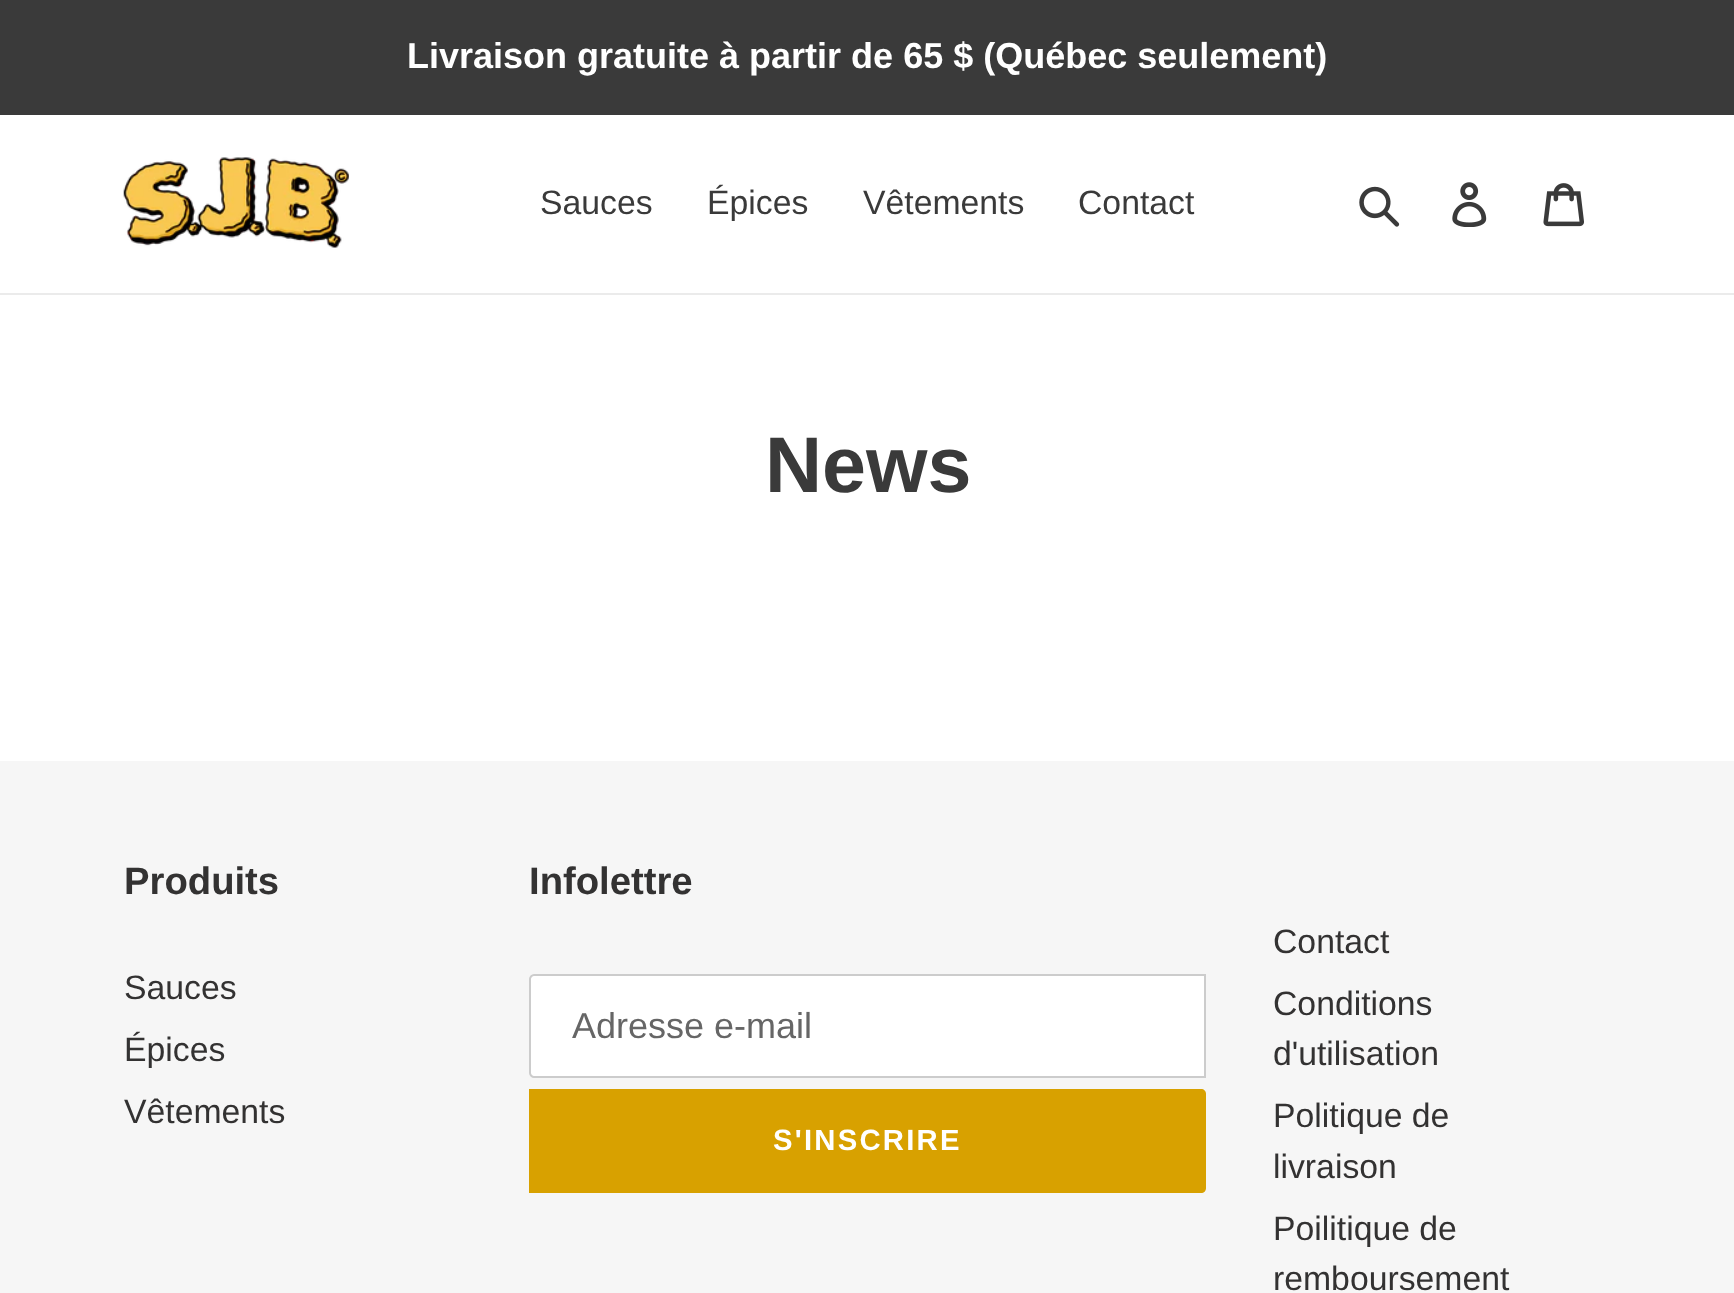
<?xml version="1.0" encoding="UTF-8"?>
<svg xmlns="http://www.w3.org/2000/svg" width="1734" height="1293">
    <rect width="100%" height="100%" fill="#FFFFFF"/>
    <rect x="0" y="0" width="1734" height="115" fill="#3A3A3A"/>
    <text x="407" y="68" font-family="Liberation Sans" font-size="36" font-weight="700" fill="#FFFFFF">Livraison gratuite à partir de 65 $ (Québec seulement)</text>
    <rect x="0" y="293" width="1734" height="2" fill="#EBEBEB"/>
    <image x="123" y="157" width="226" height="91" href="img_01.png"/>
    <text x="540" y="214" font-family="Liberation Sans" font-size="33.75" fill="#3A3A3A">Sauces</text>
    <text x="707" y="214" font-family="Liberation Sans" font-size="33.75" fill="#3A3A3A">Épices</text>
    <text x="863" y="214" font-family="Liberation Sans" font-size="33.75" fill="#3A3A3A">Vêtements</text>
    <text x="1078" y="214" font-family="Liberation Sans" font-size="33.75" fill="#3A3A3A">Contact</text>
    <image x="1359" y="186" width="41" height="41" href="img_02.png"/>
    <image x="1452" y="182" width="35" height="45" href="img_03.png"/>
    <image x="1543" y="183" width="41" height="44" href="img_04.png"/>
    <text x="765" y="492" font-family="Liberation Sans" font-size="79" font-weight="700" fill="#3A3A3A">News</text>
    <rect x="0" y="761" width="1734" height="532" fill="#F6F6F6"/>
    <text x="124" y="894" font-family="Liberation Sans" font-size="38.25" font-weight="700" fill="#333232">Produits</text>
    <text font-family="Liberation Sans" font-size="33.75" fill="#333232">
        <tspan x="124" y="999">Sauces</tspan>
        <tspan x="124" y="1061">Épices</tspan>
        <tspan x="124" y="1123">Vêtements</tspan>
    </text>
    <text x="529" y="894" font-family="Liberation Sans" font-size="38.25" font-weight="700" fill="#333232">Infolettre</text>
    <path d="M 534 975 H 1205 V 1077 H 534 C 532 1077 530 1075 530 1073 V 979 C 530 977 532 975 534 975 Z" fill="#FFFFFF" stroke="#CCCCCC" stroke-width="2"/>
    <text x="572" y="1038" font-family="Liberation Sans" font-size="36" fill="#666666">Adresse e-mail</text>
    <path d="M 529 1089 H 1201 C 1204 1089 1206 1091 1206 1094 V 1188 C 1206 1191 1204 1193 1201 1193 H 529 Z" fill="#D8A100"/>
    <text x="773" y="1150" font-family="Liberation Sans" font-size="29.25" font-weight="700" letter-spacing="2.25" fill="#FFFFFF">S'INSCRIRE</text>
    <text font-family="Liberation Sans" font-size="33.75" fill="#333232">
        <tspan x="1273" y="953">Contact</tspan>
        <tspan x="1273" y="1015">Conditions</tspan>
        <tspan x="1273" y="1065">d'utilisation</tspan>
        <tspan x="1273" y="1127">Politique de</tspan>
        <tspan x="1273" y="1178">livraison</tspan>
        <tspan x="1273" y="1240">Poilitique de</tspan>
        <tspan x="1273" y="1290">remboursement</tspan>
    </text>
</svg>
